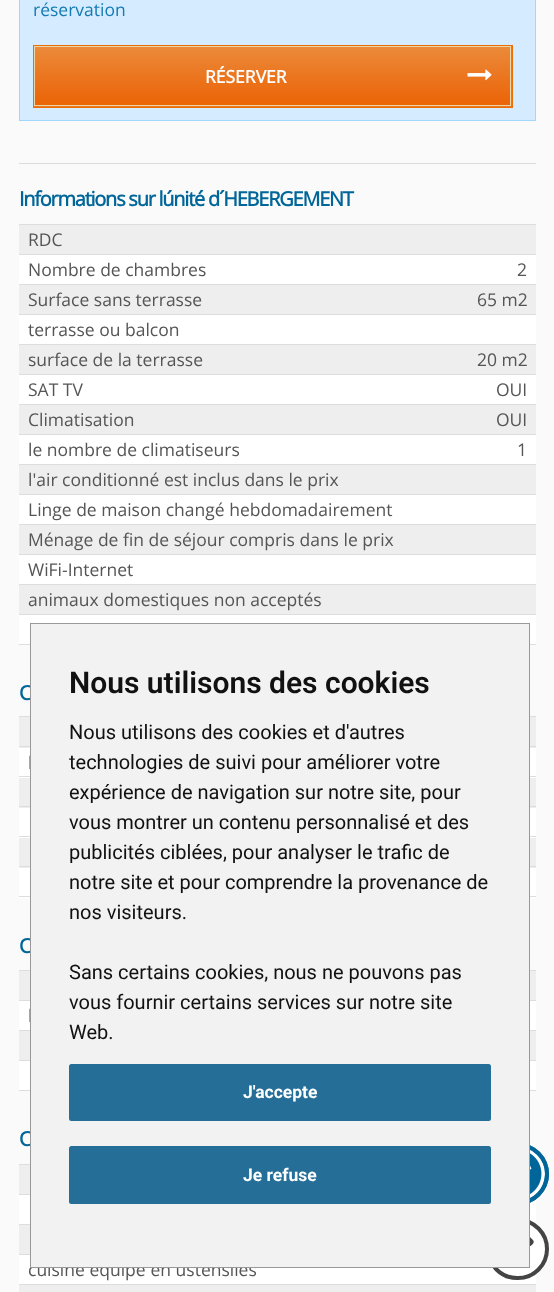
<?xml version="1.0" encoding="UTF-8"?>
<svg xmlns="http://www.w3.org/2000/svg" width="554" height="1292">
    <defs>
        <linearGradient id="g1" gradientUnits="userSpaceOnUse" x1="273" y1="46" x2="273" y2="106"><stop offset="0" stop-color="#EB8B3B"/><stop offset="0.5" stop-color="#EB7620"/><stop offset="1" stop-color="#EB6305"/></linearGradient>
    </defs>
    <rect width="100%" height="100%" fill="#FAFAFA"/>
    <rect x="19.5" y="-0.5" width="516" height="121" fill="#D5EBFF" stroke="#A1D7FB"/>
    <text x="33" y="16" font-family="Open Sans" font-size="17.5" fill="#147BB3">réservation</text>
    <rect x="34" y="46" width="478" height="61" fill="#EB7620"/>
    <rect x="35" y="47" width="475" height="58" fill="url(#g1)"/>
    <rect x="34.5" y="46.5" width="476" height="59" fill="none" stroke="#E9D6A9"/>
    <rect x="33.5" y="45.5" width="479" height="62" fill="none" stroke="#EE6E03"/>
    <text x="205" y="83" font-family="Open Sans" font-size="17.5" font-weight="700" fill="#FFFFFF">RÉSERVER</text>
    <image x="467" y="69" width="25" height="12" href="img_01.png"/>
    <rect x="19" y="163" width="517" height="1" fill="#DCDCDC"/>
    <text x="19" y="206" font-family="Open Sans" font-size="20" font-weight="700" letter-spacing="-1.25" fill="#006699">Informations sur lúnité d´HEBERGEMENT</text>
    <rect x="19" y="225" width="517" height="29" fill="#EEEEEE"/>
    <rect x="19" y="224" width="517" height="1" fill="#DDDDDD"/>
    <rect x="19" y="254" width="517" height="1" fill="#DDDDDD"/>
    <text x="28" y="246" font-family="Open Sans" font-size="17.5" fill="#555555">RDC</text>
    <rect x="19" y="255" width="517" height="29" fill="#FFFFFF"/>
    <rect x="19" y="284" width="517" height="1" fill="#DDDDDD"/>
    <text x="28" y="276" font-family="Open Sans" font-size="17.5" fill="#555555">Nombre de chambres</text>
    <text x="517" y="276" font-family="Open Sans" font-size="17.5" fill="#555555">2</text>
    <rect x="19" y="285" width="517" height="29" fill="#EEEEEE"/>
    <rect x="19" y="314" width="517" height="1" fill="#DDDDDD"/>
    <text x="28" y="306" font-family="Open Sans" font-size="17.5" fill="#555555">Surface sans terrasse</text>
    <text x="477" y="306" font-family="Open Sans" font-size="17.5" fill="#555555">65 m2</text>
    <rect x="19" y="315" width="517" height="29" fill="#FFFFFF"/>
    <rect x="19" y="344" width="517" height="1" fill="#DDDDDD"/>
    <text x="28" y="336" font-family="Open Sans" font-size="17.5" fill="#555555">terrasse ou balcon</text>
    <rect x="19" y="345" width="517" height="29" fill="#EEEEEE"/>
    <rect x="19" y="374" width="517" height="1" fill="#DDDDDD"/>
    <text x="28" y="366" font-family="Open Sans" font-size="17.5" fill="#555555">surface de la terrasse</text>
    <text x="477" y="366" font-family="Open Sans" font-size="17.5" fill="#555555">20 m2</text>
    <rect x="19" y="375" width="517" height="29" fill="#FFFFFF"/>
    <rect x="19" y="404" width="517" height="1" fill="#DDDDDD"/>
    <text x="28" y="396" font-family="Open Sans" font-size="17.5" fill="#555555">SAT TV</text>
    <text x="496" y="396" font-family="Open Sans" font-size="17.5" fill="#555555">OUI</text>
    <rect x="19" y="405" width="517" height="29" fill="#EEEEEE"/>
    <rect x="19" y="434" width="517" height="1" fill="#DDDDDD"/>
    <text x="28" y="426" font-family="Open Sans" font-size="17.5" fill="#555555">Climatisation</text>
    <text x="496" y="426" font-family="Open Sans" font-size="17.5" fill="#555555">OUI</text>
    <rect x="19" y="435" width="517" height="29" fill="#FFFFFF"/>
    <rect x="19" y="464" width="517" height="1" fill="#DDDDDD"/>
    <text x="28" y="456" font-family="Open Sans" font-size="17.5" fill="#555555">le nombre de climatiseurs</text>
    <text x="517" y="456" font-family="Open Sans" font-size="17.5" fill="#555555">1</text>
    <rect x="19" y="465" width="517" height="29" fill="#EEEEEE"/>
    <rect x="19" y="494" width="517" height="1" fill="#DDDDDD"/>
    <text x="28" y="486" font-family="Open Sans" font-size="17.5" fill="#555555">l'air conditionné est inclus dans le prix</text>
    <rect x="19" y="495" width="517" height="29" fill="#FFFFFF"/>
    <rect x="19" y="524" width="517" height="1" fill="#DDDDDD"/>
    <text x="28" y="516" font-family="Open Sans" font-size="17.5" fill="#555555">Linge de maison changé hebdomadairement</text>
    <rect x="19" y="525" width="517" height="29" fill="#EEEEEE"/>
    <rect x="19" y="554" width="517" height="1" fill="#DDDDDD"/>
    <text x="28" y="546" font-family="Open Sans" font-size="17.5" fill="#555555">Ménage de fin de séjour compris dans le prix</text>
    <rect x="19" y="555" width="517" height="29" fill="#FFFFFF"/>
    <rect x="19" y="584" width="517" height="1" fill="#DDDDDD"/>
    <text x="28" y="576" font-family="Open Sans" font-size="17.5" fill="#555555">WiFi-Internet</text>
    <rect x="19" y="585" width="517" height="29" fill="#EEEEEE"/>
    <rect x="19" y="614" width="517" height="1" fill="#DDDDDD"/>
    <text x="28" y="606" font-family="Open Sans" font-size="17.5" fill="#555555">animaux domestiques non acceptés</text>
    <rect x="19" y="615" width="517" height="29" fill="#FFFFFF"/>
    <rect x="19" y="644" width="517" height="1" fill="#DDDDDD"/>
    <text x="19" y="700" font-family="Open Sans" font-size="20" font-weight="700" letter-spacing="-1.25" fill="#006699">C</text>
    <rect x="19" y="717" width="517" height="31" fill="#EEEEEE"/>
    <rect x="19" y="716" width="517" height="1" fill="#DDDDDD"/>
    <rect x="19" y="746" width="517" height="1" fill="#DDDDDD"/>
    <rect x="19" y="748" width="517" height="30" fill="#FFFFFF"/>
    <rect x="19" y="776" width="517" height="1" fill="#DDDDDD"/>
    <text x="28" y="769" font-family="Open Sans" font-size="17.5" fill="#555555">l</text>
    <rect x="19" y="778" width="517" height="30" fill="#EEEEEE"/>
    <rect x="19" y="806" width="517" height="1" fill="#DDDDDD"/>
    <rect x="19" y="808" width="517" height="30" fill="#FFFFFF"/>
    <rect x="19" y="836" width="517" height="1" fill="#DDDDDD"/>
    <rect x="19" y="838" width="517" height="30" fill="#EEEEEE"/>
    <rect x="19" y="866" width="517" height="1" fill="#DDDDDD"/>
    <rect x="19" y="868" width="517" height="30" fill="#FFFFFF"/>
    <rect x="19" y="896" width="517" height="1" fill="#DDDDDD"/>
    <text x="19" y="953" font-family="Open Sans" font-size="20" font-weight="700" letter-spacing="-1.25" fill="#006699">C</text>
    <rect x="19" y="971" width="517" height="29" fill="#EEEEEE"/>
    <rect x="19" y="970" width="517" height="1" fill="#DDDDDD"/>
    <rect x="19" y="1000" width="517" height="1" fill="#DDDDDD"/>
    <rect x="19" y="1001" width="517" height="29" fill="#FFFFFF"/>
    <rect x="19" y="1030" width="517" height="1" fill="#DDDDDD"/>
    <text x="28" y="1022" font-family="Open Sans" font-size="17.5" fill="#555555">l</text>
    <rect x="19" y="1031" width="517" height="29" fill="#EEEEEE"/>
    <rect x="19" y="1060" width="517" height="1" fill="#DDDDDD"/>
    <rect x="19" y="1061" width="517" height="29" fill="#FFFFFF"/>
    <rect x="19" y="1090" width="517" height="1" fill="#DDDDDD"/>
    <text x="19" y="1146" font-family="Open Sans" font-size="20" font-weight="700" letter-spacing="-1.25" fill="#006699">C</text>
    <rect x="19" y="1165" width="11" height="29" fill="#EEEEEE"/>
    <rect x="19" y="1164" width="11" height="1" fill="#DDDDDD"/>
    <rect x="19" y="1194" width="11" height="1" fill="#DDDDDD"/>
    <rect x="19" y="1195" width="517" height="29" fill="#FFFFFF"/>
    <rect x="19" y="1224" width="11" height="1" fill="#DDDDDD"/>
    <rect x="19" y="1225" width="11" height="29" fill="#EEEEEE"/>
    <rect x="19" y="1254" width="11" height="1" fill="#DDDDDD"/>
    <rect x="19" y="1255" width="517" height="29" fill="#FFFFFF"/>
    <rect x="19" y="1284" width="517" height="1" fill="#DDDDDD"/>
    <text x="28" y="1276" font-family="Open Sans" font-size="17.5" fill="#555555">cuisine équipe´en ustensiles</text>
    <rect x="19" y="1285" width="517" height="7" fill="#EEEEEE"/>
    <rect x="486" y="1143" width="63" height="62" rx="31" fill="#006699"/>
    <image x="530" y="1149" width="15" height="50" href="img_02.png"/>
    <rect x="488" y="1145" width="59" height="58" rx="29" fill="none" stroke="#006699" stroke-width="4"/>
    <rect x="488" y="1220" width="59" height="58" rx="29" fill="#FFFFFF" stroke="#444444" stroke-width="4"/>
    <rect x="30.5" y="623.5" width="499" height="644" fill="#F2F2F2" stroke="#999999"/>
    <text x="69" y="693" font-family="Roboto" font-size="30" font-weight="600" fill="#111111">Nous utilisons des cookies</text>
    <text font-family="Roboto" font-size="20" fill="#111111">
        <tspan x="69" y="739">Nous utilisons des cookies et d'autres</tspan>
        <tspan x="69" y="769">technologies de suivi pour améliorer votre</tspan>
        <tspan x="69" y="799">expérience de navigation sur notre site, pour</tspan>
        <tspan x="69" y="829">vous montrer un contenu personnalisé et des</tspan>
        <tspan x="69" y="859">publicités ciblées, pour analyser le trafic de</tspan>
        <tspan x="69" y="889">notre site et pour comprendre la provenance de</tspan>
        <tspan x="69" y="919">nos visiteurs.</tspan>
    </text>
    <text font-family="Roboto" font-size="20" fill="#111111">
        <tspan x="69" y="979">Sans certains cookies, nous ne pouvons pas</tspan>
        <tspan x="69" y="1009">vous fournir certains services sur notre site</tspan>
        <tspan x="69" y="1039">Web.</tspan>
    </text>
    <rect x="69" y="1064" width="422" height="57" rx="2.5" fill="#246E97"/>
    <text x="243" y="1098" font-family="Roboto" font-size="17.5" font-weight="700" fill="#FFFFFF">J'accepte</text>
    <rect x="69" y="1146" width="422" height="58" rx="2.5" fill="#246E97"/>
    <text x="243" y="1181" font-family="Roboto" font-size="17.5" font-weight="700" fill="#FFFFFF">Je refuse</text>
    <image x="530" y="1237" width="4" height="9" href="img_03.png"/>
</svg>
